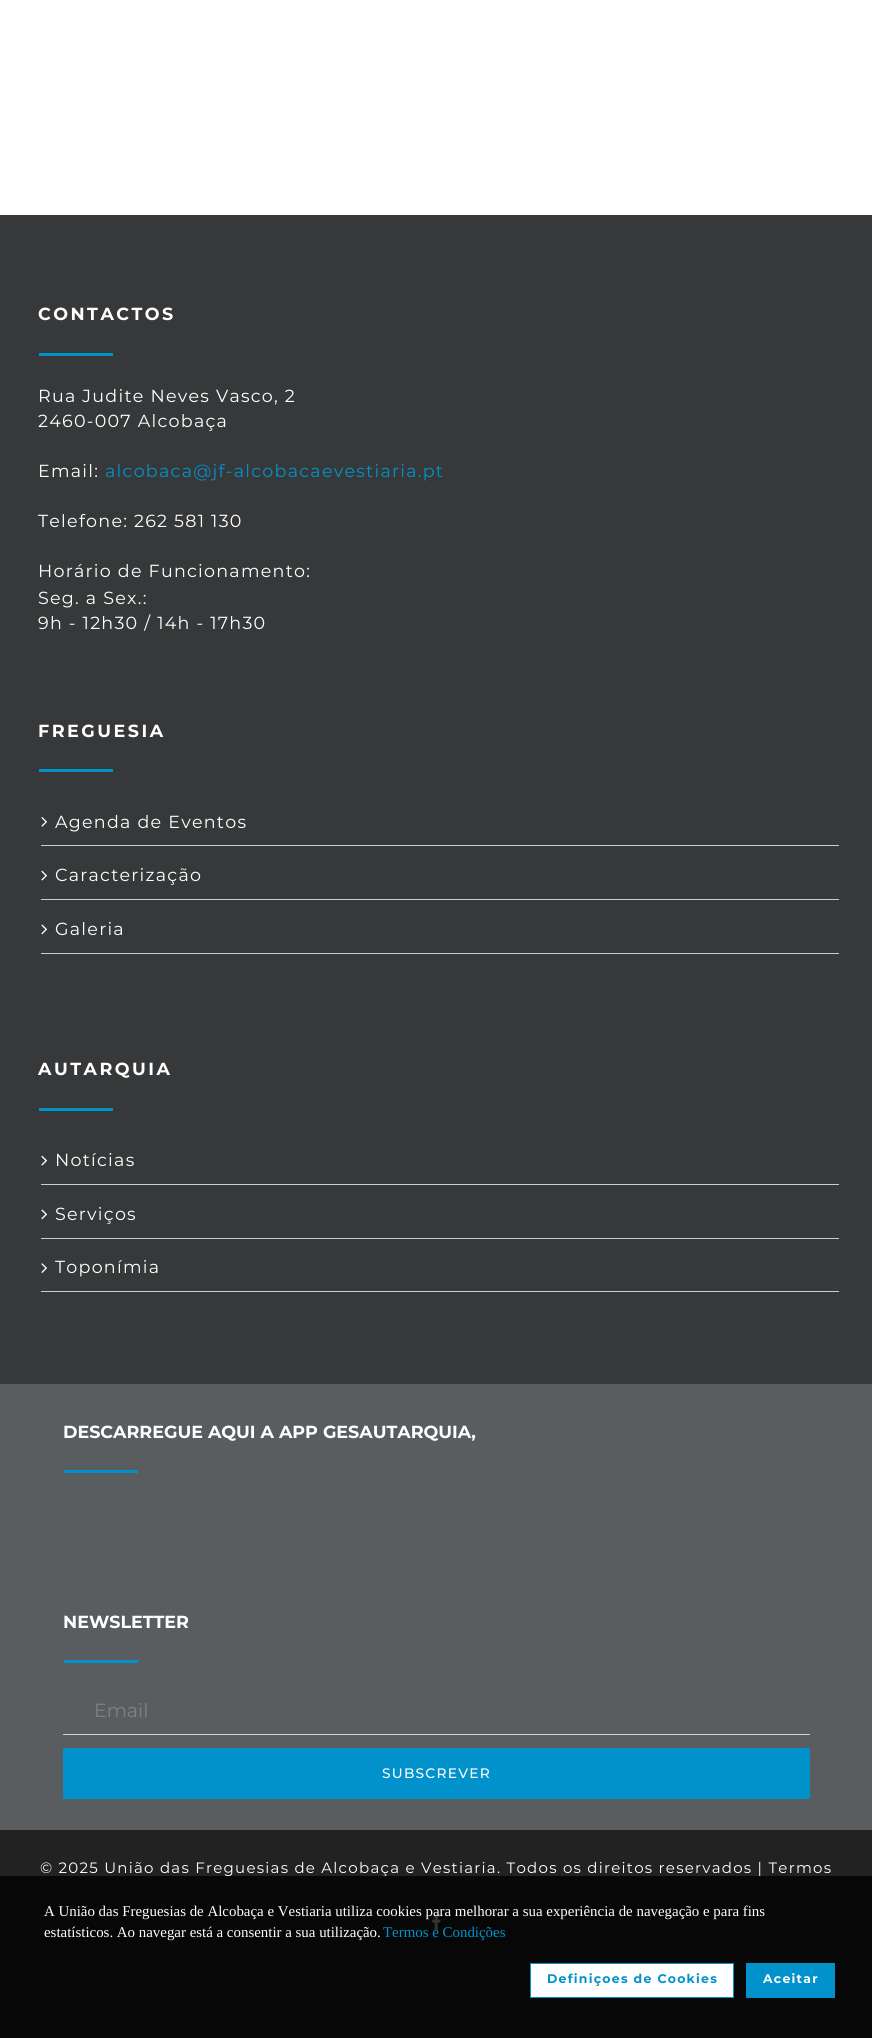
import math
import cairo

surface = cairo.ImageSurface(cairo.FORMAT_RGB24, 872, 2038)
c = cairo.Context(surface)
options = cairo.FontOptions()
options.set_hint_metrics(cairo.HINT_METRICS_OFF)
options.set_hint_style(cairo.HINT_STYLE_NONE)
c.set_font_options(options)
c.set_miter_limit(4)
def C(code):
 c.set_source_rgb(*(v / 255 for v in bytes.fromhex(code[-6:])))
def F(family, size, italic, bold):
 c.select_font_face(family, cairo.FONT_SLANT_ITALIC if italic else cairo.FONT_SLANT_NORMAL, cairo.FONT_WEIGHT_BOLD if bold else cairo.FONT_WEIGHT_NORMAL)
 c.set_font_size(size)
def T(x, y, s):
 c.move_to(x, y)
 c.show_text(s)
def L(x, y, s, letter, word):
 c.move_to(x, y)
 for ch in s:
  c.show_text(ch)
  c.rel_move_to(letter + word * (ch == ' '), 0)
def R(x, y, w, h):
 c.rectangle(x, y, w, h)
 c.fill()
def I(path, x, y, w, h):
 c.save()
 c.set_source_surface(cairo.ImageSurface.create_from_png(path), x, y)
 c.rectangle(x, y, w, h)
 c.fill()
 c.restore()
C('5a5d5f')
c.paint()
C('ffffff')
R(0,0,872,215)
C('363839')
R(0,215,872,1169)
F('Montserrat',17.5,0,1)
C('ffffff')
L(38,320,'CONTACTOS',2.5,0)
C('0292cb')
R(39,353,74,3)
F('Montserrat',17.5,0,0)
C('ffffff')
L(38,402,'Rua Judite Neves Vasco, 2',1.25,0)
L(38,427,'2460-007 Alcobaça',1.25,0)
L(38,477,'Email:',1.25,0)
C('0292cb')
L(105,477,'alcobaca@jf-alcobacaevestiaria.pt',1.25,0)
C('ffffff')
L(38,527,'Telefone: 262 581 130',1.25,0)
L(38,577,'Horário de Funcionamento:',1.25,0)
L(38,604,'Seg. a Sex.:',1.25,0)
L(38,629,'9h - 12h30 / 14h - 17h30',1.25,0)
F('Montserrat',17.5,0,1)
L(38,737,'FREGUESIA',2.5,0)
C('0292cb')
R(39,769,74,3)
C('cccccc')
R(41,845,798,1)
I('1.png',41,817,6,10)
F('Montserrat',17.5,0,0)
C('ffffff')
L(55,828,'Agenda de Eventos',1.25,0)
C('cccccc')
R(41,899,798,1)
I('2.png',41,870,6,11)
C('ffffff')
L(55,881,'Caracterização',1.25,0)
C('cccccc')
R(41,953,798,1)
I('3.png',41,924,6,11)
C('ffffff')
L(55,935,'Galeria',1.25,0)
F('Montserrat',17.5,0,1)
L(38,1075,'AUTARQUIA',2.5,0)
C('0292cb')
R(39,1108,74,3)
C('cccccc')
R(41,1184,798,1)
I('2.png',41,1155,6,11)
F('Montserrat',17.5,0,0)
C('ffffff')
L(55,1166,'Notícias',1.25,0)
C('cccccc')
R(41,1238,798,1)
I('3.png',41,1209,6,11)
C('ffffff')
L(55,1220,'Serviços',1.25,0)
C('cccccc')
R(41,1291,798,1)
I('4.png',41,1263,6,10)
C('ffffff')
L(55,1273,'Toponímia',1.25,0)
F('Montserrat',17.5,0,1)
T(63,1438,'DESCARREGUE AQUI A APP GESAUTARQUIA,')
C('0292cb')
R(64,1470,74,3)
C('ffffff')
T(63,1628,'NEWSLETTER')
C('0292cb')
R(64,1660,74,3)
C('d0d0d0')
R(63,1734,747,1)
F('Montserrat',19,0,0)
C('808080')
T(94,1717,'Email')
C('0292cb')
R(63,1748,747,51)
F('Montserrat Medium',13.75,0,0)
C('ffffff')
L(382,1778,'SUBSCREVER',1.25,0)
C('222222')
R(0,1830,872,208)
F('Montserrat',15,0,0)
C('ffffff')
L(40,1873,'© 2025 União das Freguesias de Alcobaça e Vestiaria. Todos os direitos reservados | Termos',1.25,0)
I('5.png',432,1913,9,17)
c.set_source_rgba(0,0,0,0.8)
R(0,1876,872,162)
F('Liberation Serif',14.9,0,0)
C('ffffff')
T(44,1916,'A União das Freguesias de Alcobaça e Vestiaria utiliza cookies para melhorar a sua experiência de navegação e para fins')
T(44,1937,'estatísticos. Ao navegar está a consentir a sua utilização.')
C('0292cb')
T(383,1937,'Termos e Condições')
C('ffffff')
c.rectangle(530.5,1963.5,203,34)
c.fill_preserve()
C('0292cb')
c.set_line_width(1)
c.stroke()
F('Montserrat',12.5,0,1)
L(547,1983,'Definiçoes de Cookies',1.25,0)
R(746,1963,89,35)
C('ffffff')
L(763,1983,'Aceitar',1.25,0)
surface.write_to_png('o.png')
